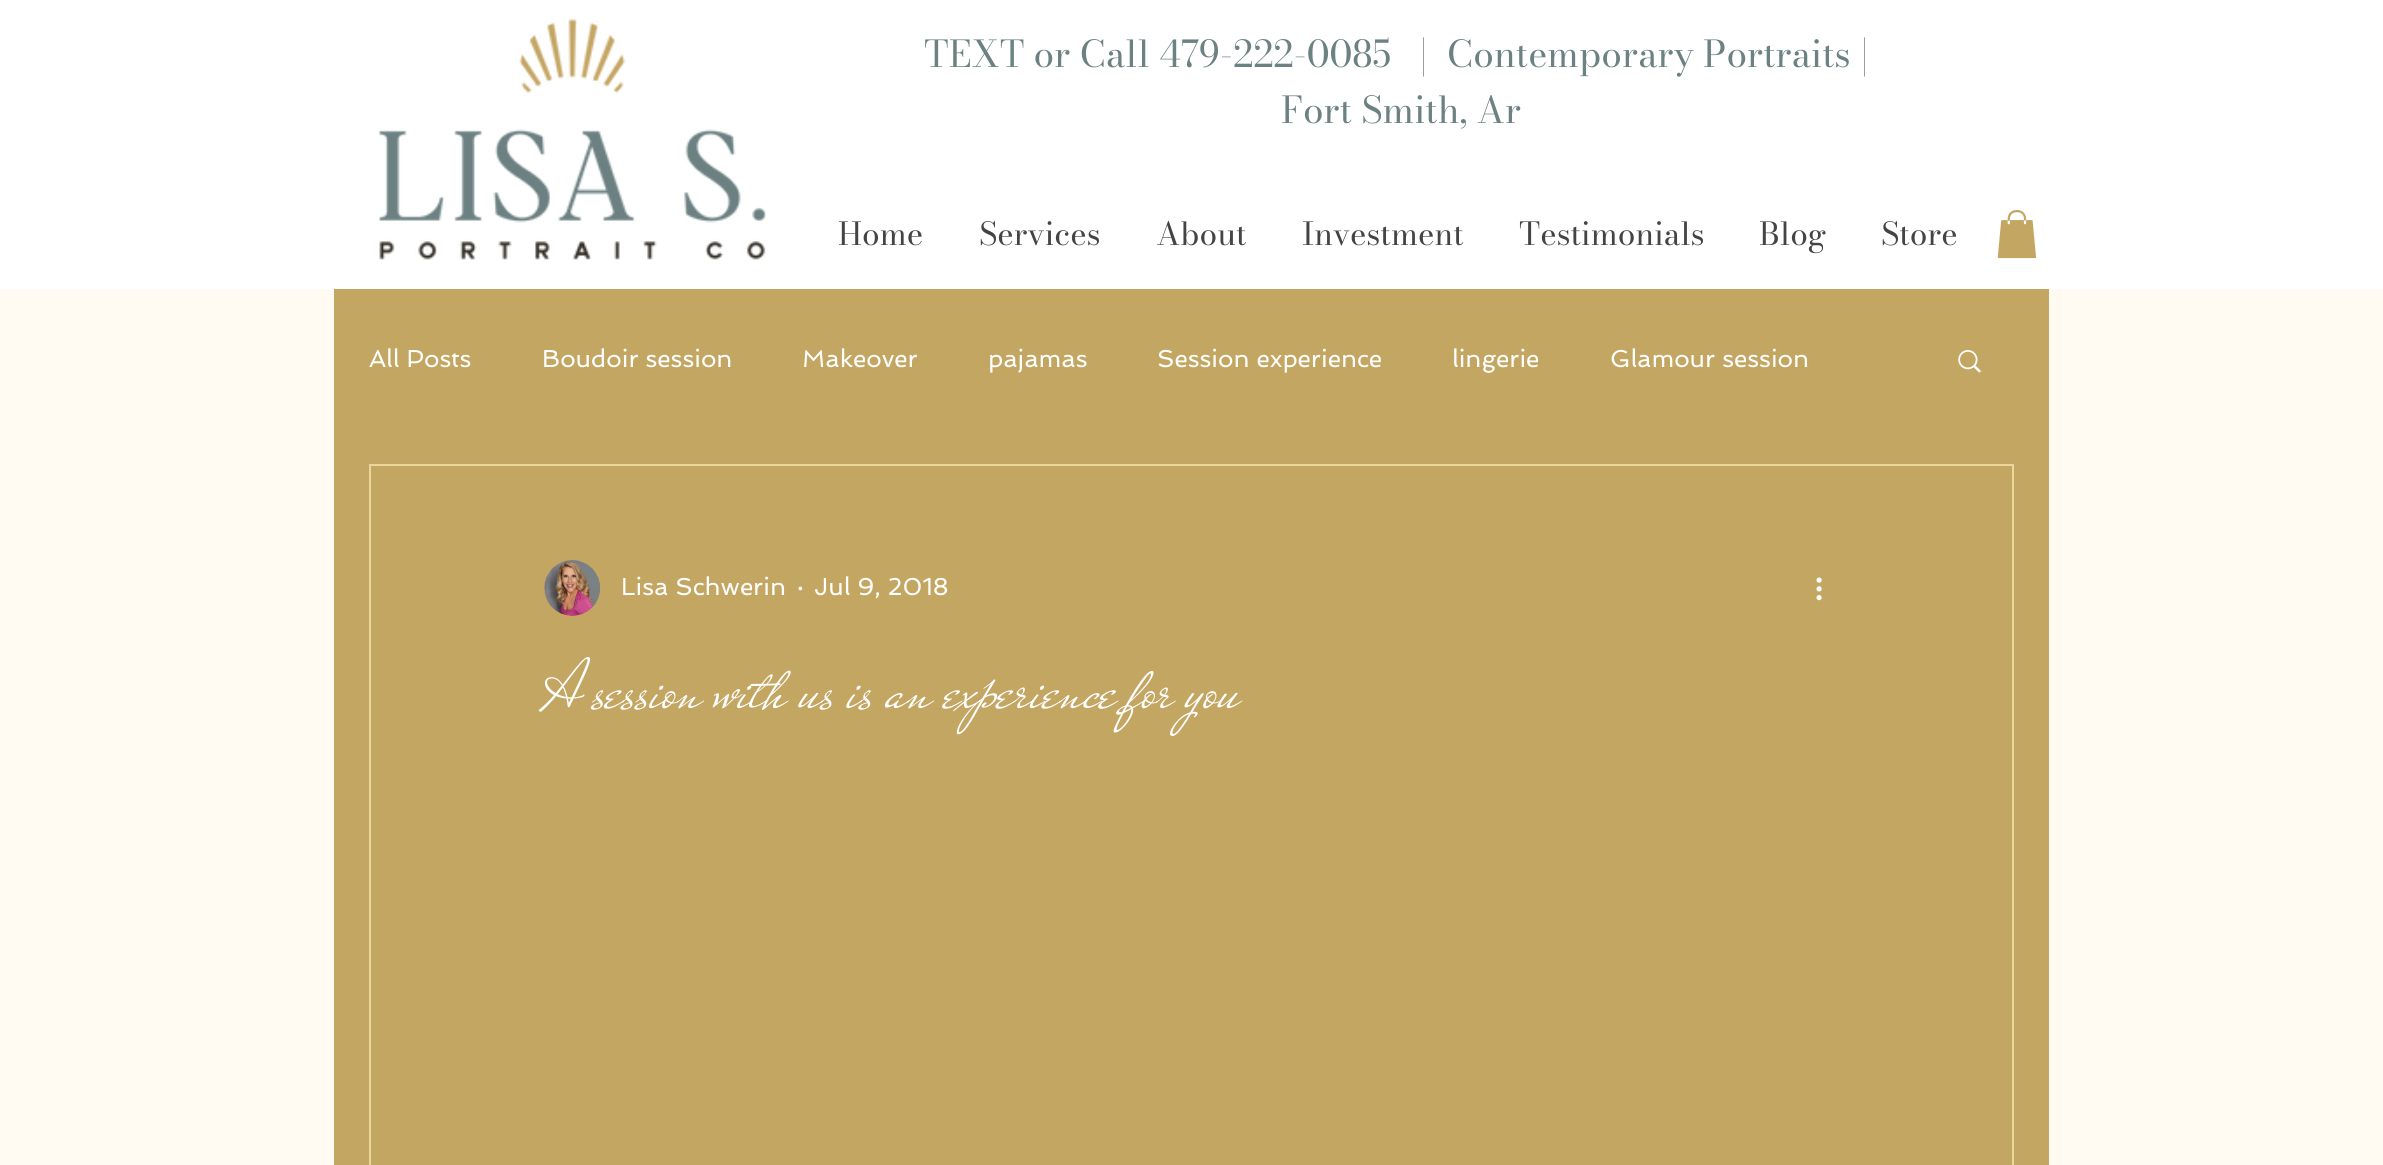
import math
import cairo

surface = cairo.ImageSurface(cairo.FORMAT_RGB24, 2383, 1165)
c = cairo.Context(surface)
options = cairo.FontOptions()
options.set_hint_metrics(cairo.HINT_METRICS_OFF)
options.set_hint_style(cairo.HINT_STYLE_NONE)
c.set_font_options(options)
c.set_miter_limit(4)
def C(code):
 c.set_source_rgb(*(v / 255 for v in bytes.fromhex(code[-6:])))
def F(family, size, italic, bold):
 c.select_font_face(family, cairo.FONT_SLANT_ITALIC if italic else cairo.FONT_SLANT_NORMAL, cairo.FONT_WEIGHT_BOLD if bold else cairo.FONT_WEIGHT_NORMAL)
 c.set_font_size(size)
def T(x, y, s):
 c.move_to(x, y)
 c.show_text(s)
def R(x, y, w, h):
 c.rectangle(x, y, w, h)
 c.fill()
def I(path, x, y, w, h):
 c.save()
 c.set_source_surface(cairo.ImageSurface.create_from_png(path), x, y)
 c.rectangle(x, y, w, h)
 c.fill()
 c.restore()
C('ffffff')
c.paint()
I('1.png',378,18,388,242)
F('Bodoni Moda',36.75,0,0)
C('6c8182')
T(924,67,'TEXT or Call 479-222-0085')
F('Bodoni Moda',38,0,0)
C('7b7b7c')
T(1419,67,'|')
F('Bodoni Moda',36.75,0,0)
C('6c8182')
T(1447,67,'Contemporary Portraits')
F('Bodoni Moda',38,0,0)
C('7b7b7c')
T(1860,67,'|')
F('Bodoni Moda',36.75,0,0)
C('6c8182')
T(1281,123,'Fort Smith, Ar')
F('Bodoni Moda',31.5,0,0)
C('444444')
T(838,245,'Home')
T(979,245,'Services')
T(1156,245,'About')
T(1302,245,'Investment')
T(1519,245,'Testimonials')
T(1759,245,'Blog')
T(1881,245,'Store')
I('2.png',1997,210,39,49)
C('fffbf3')
R(0,289,2383,876)
C('c4a663')
R(334,289,1715,876)
F('Spinnaker',24.5,0,0)
C('ffffff')
T(369,367,'All Posts')
T(542,367,'Boudoir session')
T(802,367,'Makeover')
T(988,367,'pajamas')
T(1157,367,'Session experience')
T(1452,367,'lingerie')
T(1610,367,'Glamour session')
I('3.png',1958,350,23,23)
c.rectangle(370,465,1643,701)
C('ecd69e')
c.stroke()
I('4.png',544,560,56,56)
C('ffffff')
T(621,595,'Lisa Schwerin')
T(797,595,'·')
T(814,595,'Jul 9, 2018')
I('5.png',1816,577,6,24)
F('Mr De Haviland',70,0,0)
T(544,707,'A session with us is an experience for you')
surface.write_to_png('o.png')
